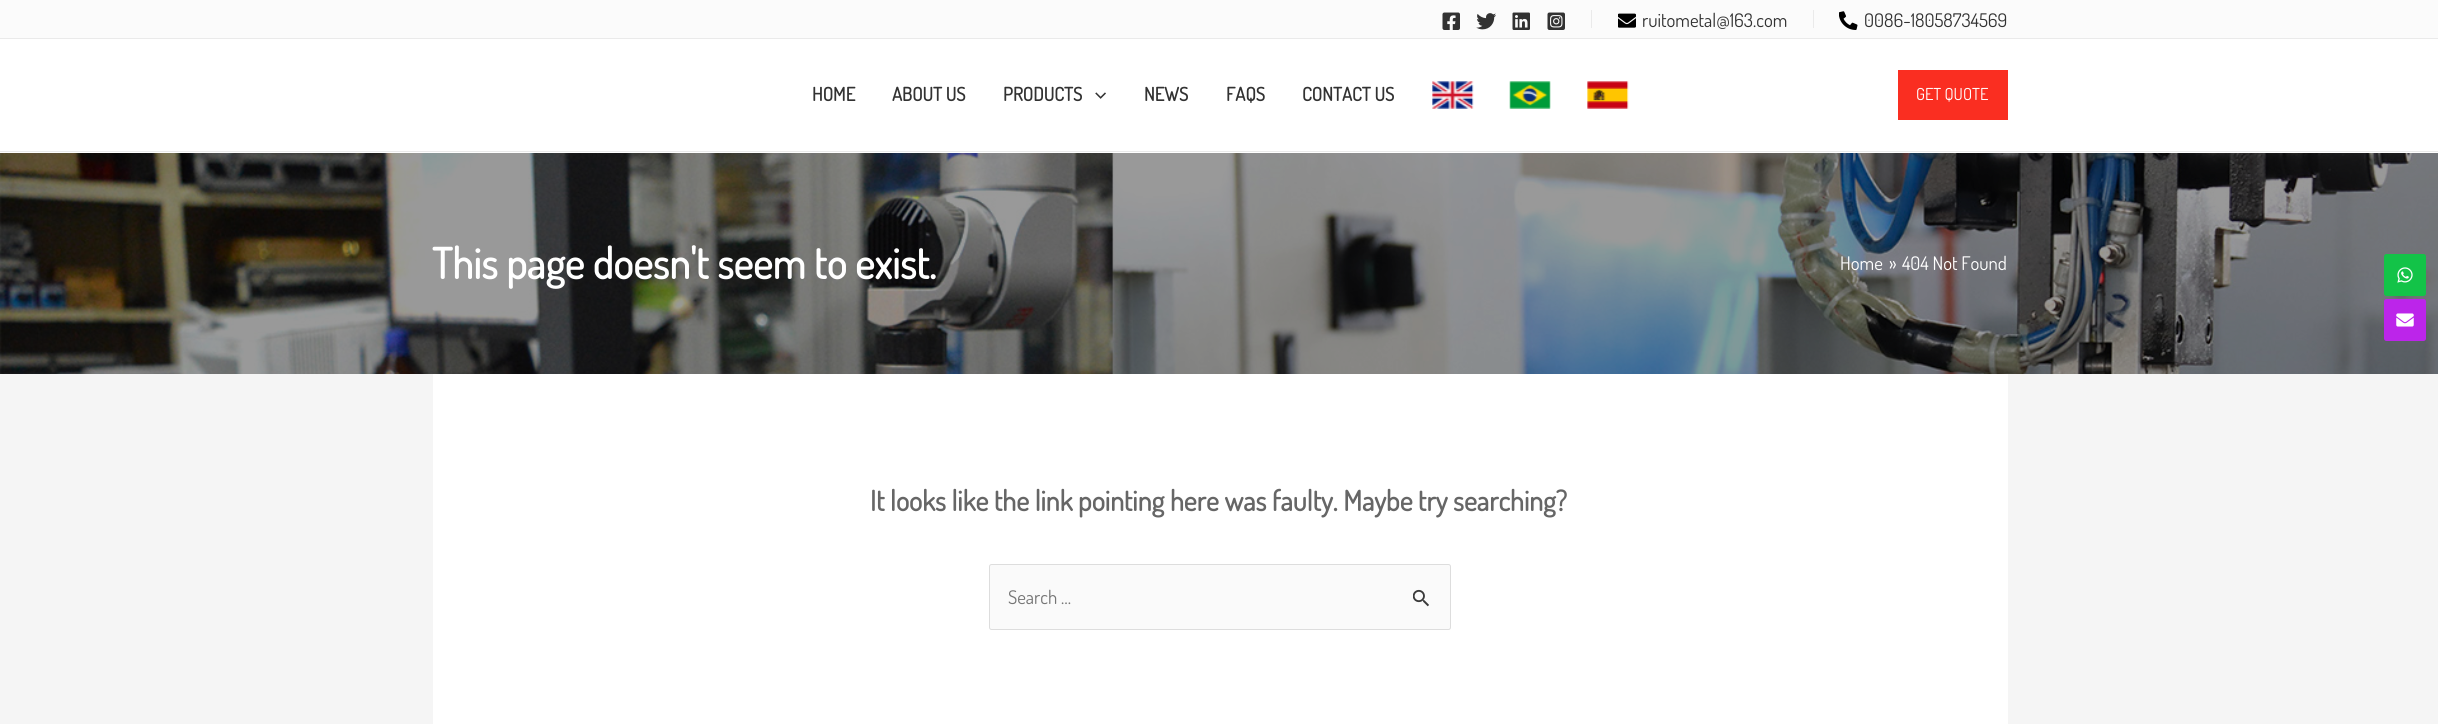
import math
import cairo

surface = cairo.ImageSurface(cairo.FORMAT_RGB24, 2438, 724)
c = cairo.Context(surface)
options = cairo.FontOptions()
options.set_hint_metrics(cairo.HINT_METRICS_OFF)
options.set_hint_style(cairo.HINT_STYLE_NONE)
c.set_font_options(options)
c.set_miter_limit(4)
def C(code):
 c.set_source_rgb(*(v / 255 for v in bytes.fromhex(code[-6:])))
def F(family, size, italic, bold):
 c.select_font_face(family, cairo.FONT_SLANT_ITALIC if italic else cairo.FONT_SLANT_NORMAL, cairo.FONT_WEIGHT_BOLD if bold else cairo.FONT_WEIGHT_NORMAL)
 c.set_font_size(size)
def T(x, y, s):
 c.move_to(x, y)
 c.show_text(s)
def R(x, y, w, h):
 c.rectangle(x, y, w, h)
 c.fill()
def Q(x, y, w, h, r):
 c.new_sub_path()
 for i, (u, v) in enumerate([(x + w - r, y + h - r), (x + r, y + h - r), (x + r, y + r), (x + w - r, y + r)]):
  c.arc(u, v, r, i * math.pi / 2, (i + 1) * math.pi / 2)
 c.close_path()
def I(path, x, y, w, h):
 c.save()
 c.set_source_surface(cairo.ImageSurface.create_from_png(path), x, y)
 c.rectangle(x, y, w, h)
 c.fill()
 c.restore()
C('f5f5f5')
c.paint()
C('fbfbfb')
R(0,0,2438,38)
C('eaeaea')
R(0,38,2438,1)
I('1.png',1442,12,18,18)
I('2.png',1476,13,20,17)
I('3.png',1512,12,18,18)
I('4.png',1547,12,18,18)
R(1591,10,1,18)
I('5.png',1618,13,18,15)
F('Dosis',18.75,0,0)
C('323232')
T(1642,27,'ruitometal@163.com')
C('eaeaea')
R(1813,10,1,18)
I('6.png',1839,11,19,19)
C('323232')
T(1864,27,'0086-18058734569')
C('ffffff')
R(0,39,2438,114)
C('eaeaea')
R(0,151,2438,1)
F('Dosis',18.75,0,1)
C('323232')
T(812,101,'HOME')
T(892,101,'ABOUT US')
T(1003,101,'PRODUCTS')
I('7.png',1095,92,11,7)
T(1144,101,'NEWS')
T(1226,101,'FAQS')
T(1302,101,'CONTACT US')
I('8.png',1432,81,42,28)
I('9.png',1509,81,42,28)
I('10.png',1587,81,42,28)
C('fa2e21')
R(1898,70,110,50)
F('Dosis',16.5,0,0)
C('ffffff')
T(1916,100,'GET QUOTE')
I('11.png',0,153,2438,221)
F('Dosis',42.5,0,1)
T(432,279,'This page doesn\'t seem to exist.')
F('Dosis',18.75,0,0)
T(1840,270,'Home')
T(1889,270,'»')
T(1902,270,'404 Not Found')
R(433,374,1575,350)
F('Dosis',28.1,0,1)
C('666666')
T(870,511,'It looks like the link pointing here was faulty. Maybe try searching?')
C('fafafa')
Q(989.5,564.5,461,65,2)
c.fill_preserve()
C('dddddd')
c.set_line_width(1)
c.stroke()
F('Dosis',18.75,0,0)
C('757575')
T(1008,604,'Search …')
I('12.png',1413,589,16,18)
C('13c348')
Q(2384,254,42,42,2.5)
c.fill()
I('13.png',2397,267,16,16)
C('bc25ea')
Q(2384,299,42,42,2.5)
c.fill()
I('14.png',2396,313,18,14)
surface.write_to_png('o.png')
